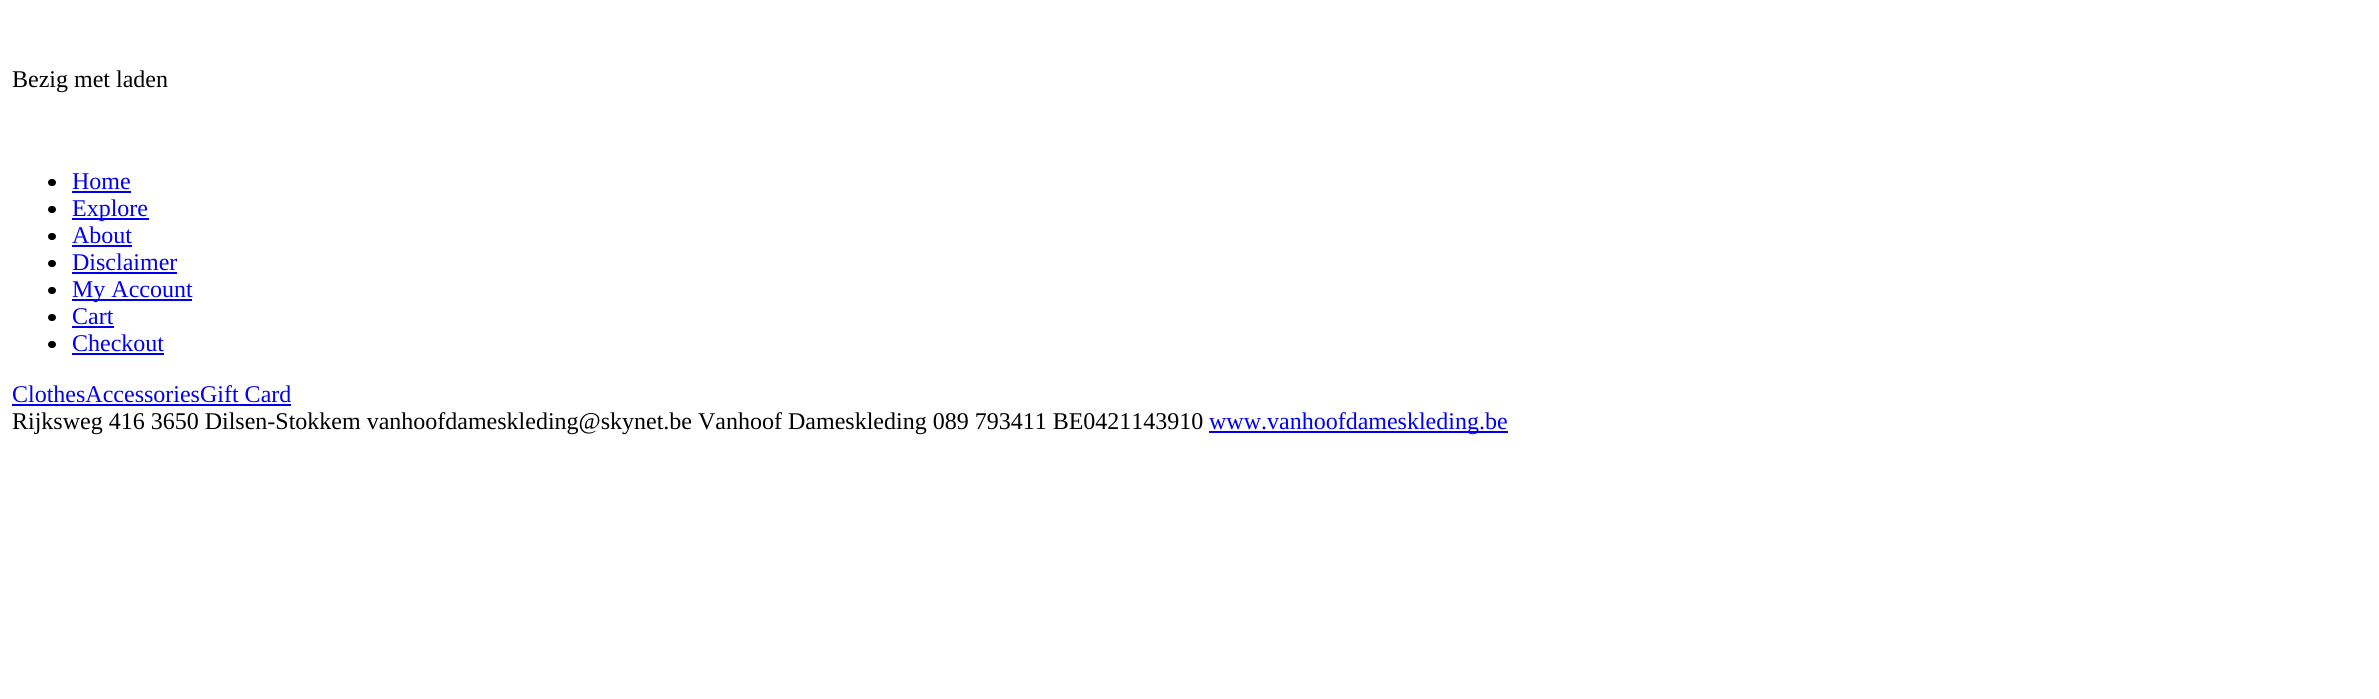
import math
import cairo

surface = cairo.ImageSurface(cairo.FORMAT_RGB24, 2379, 699)
c = cairo.Context(surface)
options = cairo.FontOptions()
options.set_hint_metrics(cairo.HINT_METRICS_OFF)
options.set_hint_style(cairo.HINT_STYLE_NONE)
c.set_font_options(options)
c.set_miter_limit(4)
def C(code):
 c.set_source_rgb(*(v / 255 for v in bytes.fromhex(code[-6:])))
def F(family, size, italic, bold):
 c.select_font_face(family, cairo.FONT_SLANT_ITALIC if italic else cairo.FONT_SLANT_NORMAL, cairo.FONT_WEIGHT_BOLD if bold else cairo.FONT_WEIGHT_NORMAL)
 c.set_font_size(size)
def T(x, y, s):
 c.move_to(x, y)
 c.show_text(s)
def R(x, y, w, h):
 c.rectangle(x, y, w, h)
 c.fill()
def Q(x, y, w, h, r):
 c.new_sub_path()
 for i, (u, v) in enumerate([(x + w - r, y + h - r), (x + r, y + h - r), (x + r, y + r), (x + w - r, y + r)]):
  c.arc(u, v, r, i * math.pi / 2, (i + 1) * math.pi / 2)
 c.close_path()
C('ffffff')
c.paint()
F('Liberation Serif',24,0,0)
C('000000')
T(12,87,'Bezig met laden')
Q(48,179,8,7,3.5)
c.fill()
C('0000ee')
T(72,189,'Home')
R(72,191,59,2)
C('000000')
Q(48,206,8,7,3.5)
c.fill()
C('0000ee')
R(72,218,77,2)
T(72,216,'Explore')
C('000000')
Q(48,233,8,7,3.5)
c.fill()
C('0000ee')
T(72,243,'About')
R(72,245,60,2)
C('000000')
Q(48,260,8,7,3.5)
c.fill()
C('0000ee')
T(72,270,'Disclaimer')
R(72,272,105,2)
C('000000')
Q(48,287,8,7,3.5)
c.fill()
C('0000ee')
R(72,299,120,2)
T(72,297,'My Account')
C('000000')
Q(48,314,8,7,3.5)
c.fill()
C('0000ee')
T(72,324,'Cart')
R(72,326,42,2)
C('000000')
Q(48,341,8,7,3.5)
c.fill()
C('0000ee')
T(72,351,'Checkout')
R(72,353,92,2)
T(12,402,'ClothesAccessoriesGift Card')
R(12,404,279,2)
C('000000')
T(12,429,'Rijksweg 416 3650 Dilsen-Stokkem vanhoofdameskleding@skynet.be Vanhoof Dameskleding 089 793411 BE0421143910')
C('0000ee')
R(1209,431,299,2)
T(1209,429,'www.vanhoofdameskleding.be')
surface.write_to_png('o.png')
